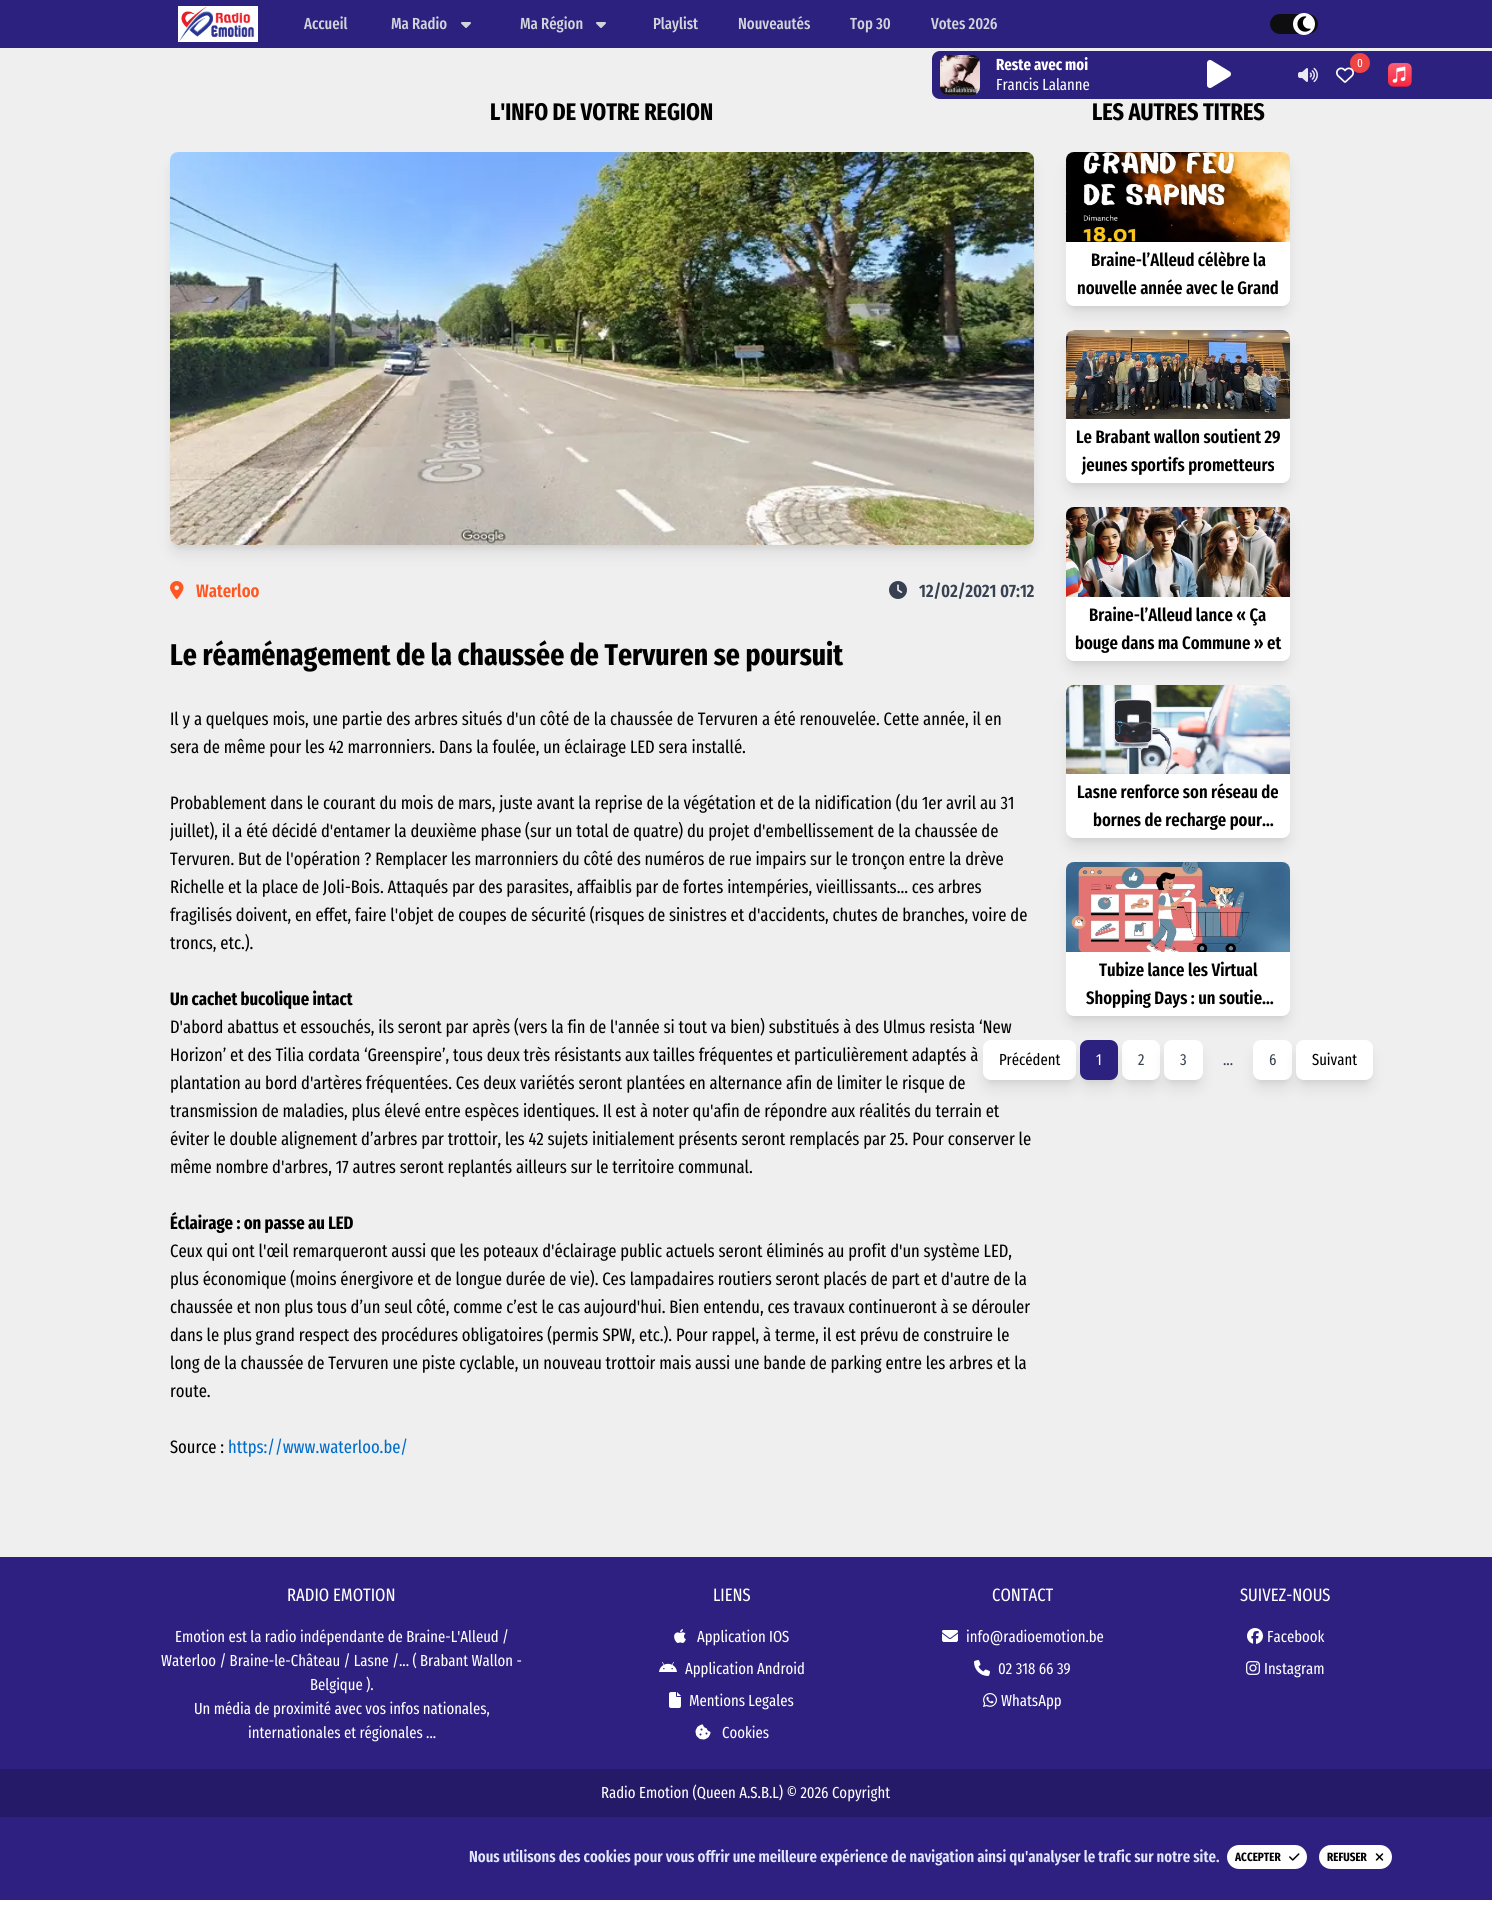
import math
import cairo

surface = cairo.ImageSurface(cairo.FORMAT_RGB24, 1492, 1909)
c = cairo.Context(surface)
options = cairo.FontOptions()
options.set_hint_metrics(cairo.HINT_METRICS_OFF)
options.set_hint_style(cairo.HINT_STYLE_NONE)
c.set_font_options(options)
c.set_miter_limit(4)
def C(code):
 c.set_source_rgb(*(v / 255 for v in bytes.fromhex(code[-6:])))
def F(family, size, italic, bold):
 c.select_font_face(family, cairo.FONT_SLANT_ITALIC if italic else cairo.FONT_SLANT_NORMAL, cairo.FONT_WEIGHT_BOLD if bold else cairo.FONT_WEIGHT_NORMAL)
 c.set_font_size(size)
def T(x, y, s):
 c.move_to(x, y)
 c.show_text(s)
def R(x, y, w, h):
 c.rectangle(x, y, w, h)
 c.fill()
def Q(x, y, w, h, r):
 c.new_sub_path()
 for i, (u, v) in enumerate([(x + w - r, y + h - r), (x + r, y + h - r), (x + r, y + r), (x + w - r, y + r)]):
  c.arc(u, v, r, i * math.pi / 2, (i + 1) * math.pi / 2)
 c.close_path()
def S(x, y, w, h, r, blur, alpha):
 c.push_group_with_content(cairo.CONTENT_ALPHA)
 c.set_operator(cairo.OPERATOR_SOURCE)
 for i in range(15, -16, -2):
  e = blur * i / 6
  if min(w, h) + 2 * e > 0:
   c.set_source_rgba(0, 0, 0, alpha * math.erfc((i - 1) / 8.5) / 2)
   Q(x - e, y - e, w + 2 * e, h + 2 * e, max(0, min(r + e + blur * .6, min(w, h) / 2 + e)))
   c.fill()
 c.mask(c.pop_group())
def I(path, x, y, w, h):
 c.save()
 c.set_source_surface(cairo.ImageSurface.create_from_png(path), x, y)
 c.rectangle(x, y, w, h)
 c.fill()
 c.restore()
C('ffffff')
c.paint()
C('2d2180')
R(0,0,1492,48)
C('ffffff')
R(178,6,80,36)
I('1.png',179,6,76,36)
F('Fira Sans Extra Condensed Medium',16,0,0)
C('d1d5db')
T(304,29,'Accueil')
T(391,29,'Ma Radio')
I('2.png',461,22,10,6)
T(520,29,'Ma Région')
I('2.png',596,22,10,6)
T(653,29,'Playlist')
T(738,29,'Nouveautés')
T(850,29,'Top 30')
T(931,29,'Votes 2026')
C('0e0e10')
Q(1270,14,48,20,10)
c.fill()
C('ffffff')
c.arc(1304,24,11,0,2 * math.pi)
c.fill()
I('3.png',1297,16,14,16)
C('eeefee')
R(0,48,1492,1509)
C('2d2180')
c.new_path()
c.move_to(940,51)
c.line_to(1492,51)
c.line_to(1492,99)
c.line_to(940,99)
c.curve_to(935.5,99,932,95.5,932,91)
c.line_to(932,59)
c.curve_to(932,54.5,935.5,51,940,51)
c.close_path()
c.fill()
I('4.png',940,55,40,40)
F('Fira Sans Extra Condensed',16,0,1)
C('ffffff')
T(996,70,'Reste avec moi')
F('Fira Sans Extra Condensed',16,0,0)
T(996,90,'Francis Lalanne')
I('5.png',1207,60,24,28)
I('6.png',1298,67,20,16)
C('ef4444')
c.arc(1360,63,10,0,2 * math.pi)
c.fill()
F('Fira Sans Extra Condensed',12,0,0)
C('ffffff')
T(1357,67,'0')
I('7.png',1336,67,18,16)
I('8.png',1388,63,24,24)
F('Fira Sans Extra Condensed',24,0,1)
C('000000')
T(490,120,'L\'INFO DE VOTRE REGION')
C('000000')
S(174,160,856,385,4,3,.1)
S(173,165,858,387,5,7.5,.1)
C('ffffff')
Q(170,152,864,393,8)
c.fill()
I('9.png',170,152,864,393)
I('10.png',170,581,14,18)
F('Fira Sans Extra Condensed SemiBold',18,0,0)
C('ff5722')
T(196,597,'Waterloo')
I('11.png',889,581,18,18)
C('374151')
T(919,597,'12/02/2021 07:12')
F('Fira Sans Extra Condensed',30,0,1)
C('000000')
T(170,665,'Le réaménagement de la chaussée de Tervuren se poursuit')
F('Fira Sans Extra Condensed',18,0,0)
T(170,725,'Il y a quelques mois, une partie des arbres situés d\'un côté de la chaussée de Tervuren a été renouvelée. Cette année, il en')
T(170,753,'sera de même pour les 42 marronniers. Dans la foulée, un éclairage LED sera installé.')
T(170,809,'Probablement dans le courant du mois de mars, juste avant la reprise de la végétation et de la nidification (du 1er avril au 31')
T(170,837,'juillet), il a été décidé d\'entamer la deuxième phase (sur un total de quatre) du projet d\'embellissement de la chaussée de')
T(170,865,'Tervuren. But de l\'opération ? Remplacer les marronniers du côté des numéros de rue impairs sur le tronçon entre la drève')
T(170,893,'Richelle et la place de Joli-Bois. Attaqués par des parasites, affaiblis par de fortes intempéries, vieillissants… ces arbres')
T(170,921,'fragilisés doivent, en effet, faire l\'objet de coupes de sécurité (risques de sinistres et d\'accidents, chutes de branches, voire de')
T(170,949,'troncs, etc.).')
F('Fira Sans Extra Condensed',18,0,1)
T(170,1005,'Un cachet bucolique intact')
F('Fira Sans Extra Condensed',18,0,0)
T(170,1033,'D\'abord abattus et essouchés, ils seront par après (vers la fin de l\'année si tout va bien) substitués à des Ulmus resista ‘New')
T(170,1061,'Horizon’ et des Tilia cordata ‘Greenspire’, tous deux très résistants aux tailles fréquentes et particulièrement adaptés à')
T(170,1089,'plantation au bord d\'artères fréquentées. Ces deux variétés seront plantées en alternance afin de limiter le risque de')
T(170,1117,'transmission de maladies, plus élevé entre espèces identiques. Il est à noter qu\'afin de répondre aux réalités du terrain et')
T(170,1145,'éviter le double alignement d’arbres par trottoir, les 42 sujets initialement présents seront remplacés par 25. Pour conserver le')
T(170,1173,'même nombre d\'arbres, 17 autres seront replantés ailleurs sur le territoire communal.')
F('Fira Sans Extra Condensed',18,0,1)
T(170,1229,'Éclairage : on passe au LED')
F('Fira Sans Extra Condensed',18,0,0)
T(170,1257,'Ceux qui ont l\'œil remarqueront aussi que les poteaux d\'éclairage public actuels seront éliminés au profit d\'un système LED,')
T(170,1285,'plus économique (moins énergivore et de longue durée de vie). Ces lampadaires routiers seront placés de part et d\'autre de la')
T(170,1313,'chaussée et non plus tous d’un seul côté, comme c’est le cas aujourd\'hui. Bien entendu, ces travaux continueront à se dérouler')
T(170,1341,'dans le plus grand respect des procédures obligatoires (permis SPW, etc.). Pour rappel, à terme, il est prévu de construire le')
T(170,1369,'long de la chaussée de Tervuren une piste cyclable, un nouveau trottoir mais aussi une bande de parking entre les arbres et la')
T(170,1397,'route.')
T(170,1453,'Source :')
C('006dcc')
T(228,1453,'https://www.waterloo.be/')
F('Fira Sans Extra Condensed',24,0,1)
C('000000')
T(1092,120,'LES AUTRES TITRES')
C('000000')
S(1070,160,216,146,4,3,.1)
S(1069,165,218,148,5,7.5,.1)
C('ffffff')
Q(1066,152,224,154,8)
c.fill()
I('12.png',1066,152,224,90)
F('Fira Sans Extra Condensed SemiBold',18,0,0)
C('000000')
T(1091,266,'Braine-l’Alleud célèbre la')
T(1077,294,'nouvelle année avec le Grand')
C('000000')
S(1070,338,216,145,4,3,.1)
S(1069,343,218,147,5,7.5,.1)
C('ffffff')
Q(1066,330,224,153,8)
c.fill()
I('13.png',1066,330,224,89)
C('000000')
T(1076,443,'Le Brabant wallon soutient 29')
T(1082,471,'jeunes sportifs prometteurs')
C('000000')
S(1070,515,216,146,4,3,.1)
S(1069,520,218,148,5,7.5,.1)
C('ffffff')
Q(1066,507,224,154,8)
c.fill()
I('14.png',1066,507,224,90)
C('000000')
T(1089,621,'Braine-l’Alleud lance « Ça')
T(1075,649,'bouge dans ma Commune » et')
C('000000')
S(1070,693,216,145,4,3,.1)
S(1069,698,218,147,5,7.5,.1)
C('ffffff')
Q(1066,685,224,153,8)
c.fill()
I('15.png',1066,685,224,89)
C('000000')
T(1077,798,'Lasne renforce son réseau de')
T(1093,826,'bornes de recharge pour…')
C('000000')
S(1070,870,216,146,4,3,.1)
S(1069,875,218,148,5,7.5,.1)
C('ffffff')
Q(1066,862,224,154,8)
c.fill()
I('16.png',1066,862,224,90)
C('000000')
T(1099,976,'Tubize lance les Virtual')
T(1086,1004,'Shopping Days : un soutie…')
C('000000')
S(987,1048,85,32,4,3,.1)
S(986,1053,87,34,5,7.5,.1)
C('ffffff')
Q(983,1040,93,40,8)
c.fill()
F('Fira Sans Extra Condensed',16,0,0)
C('000000')
T(999,1065,'Précédent')
C('000000')
S(1126,1048,30,32,4,3,.1)
S(1125,1053,32,34,5,7.5,.1)
C('ffffff')
Q(1122,1040,38,40,8)
c.fill()
C('000000')
S(1084,1048,30,32,4,3,.1)
S(1083,1053,32,34,5,7.5,.1)
C('2d2180')
Q(1080,1040,38,40,8)
c.fill()
C('ffffff')
T(1096,1065,'1')
C('374151')
T(1138,1065,'2')
C('000000')
S(1168,1048,31,32,4,3,.1)
S(1167,1053,33,34,5,7.5,.1)
C('ffffff')
Q(1164,1040,39,40,8)
c.fill()
C('374151')
T(1180,1065,'3')
T(1223,1065,'...')
C('000000')
S(1257,1048,31,32,4,3,.1)
S(1256,1053,33,34,5,7.5,.1)
C('ffffff')
Q(1253,1040,39,40,8)
c.fill()
C('374151')
T(1269,1065,'6')
C('000000')
S(1300,1048,69,32,4,3,.1)
S(1299,1053,71,34,5,7.5,.1)
C('ffffff')
Q(1296,1040,77,40,8)
c.fill()
C('000000')
T(1312,1065,'Suivant')
C('2d2081')
R(0,1557,1492,343)
F('Fira Sans Extra Condensed',18,0,0)
C('ffffff')
T(287,1601,'RADIO EMOTION')
F('Fira Sans Extra Condensed',16,0,0)
T(175,1642,'Emotion est la radio indépendante de Braine-L\'Alleud /')
T(161,1666,'Waterloo / Braine-le-Château / Lasne /... ( Brabant Wallon -')
T(310,1690,'Belgique ).')
T(194,1714,'Un média de proximité avec vos infos nationales,')
T(248,1738,'internationales et régionales ...')
F('Fira Sans Extra Condensed',18,0,0)
T(713,1601,'LIENS')
I('17.png',674,1629,12,14)
F('Fira Sans Extra Condensed',16,0,0)
T(697,1642,'Application IOS')
I('18.png',659,1661,18,11)
T(685,1674,'Application Android')
I('19.png',669,1692,12,16)
T(689,1706,'Mentions Legales')
I('20.png',695,1724,16,16)
T(722,1738,'Cookies')
F('Fira Sans Extra Condensed',18,0,0)
T(992,1601,'CONTACT')
I('21.png',942,1630,16,12)
F('Fira Sans Extra Condensed',16,0,0)
T(966,1642,'info@radioemotion.be')
I('22.png',974,1660,16,16)
T(998,1674,'02 318 66 39')
I('23.png',983,1693,14,14)
T(1001,1706,'WhatsApp')
F('Fira Sans Extra Condensed',18,0,0)
T(1240,1601,'SUIVEZ-NOUS')
I('24.png',1247,1628,16,16)
F('Fira Sans Extra Condensed',16,0,0)
T(1267,1642,'Facebook')
I('25.png',1246,1661,14,14)
T(1264,1674,'Instagram')
C('251a67')
R(0,1769,1492,48)
C('ffffff')
T(601,1798,'Radio Emotion (Queen A.S.B.L) © 2026 Copyright')
F('Fira Sans Extra Condensed SemiBold',16,0,0)
C('e0e7ff')
T(469,1862,'Nous utilisons des cookies pour vous offrir une meilleure expérience de navigation ainsi qu\'analyser le trafic sur notre site.')
C('ffffff')
Q(1227,1845,80,24,12)
c.fill()
F('Fira Sans Extra Condensed',12,0,1)
C('000000')
T(1235,1861,'ACCEPTER')
I('26.png',1289,1853,11,8)
C('ffffff')
Q(1319,1845,73,24,12)
c.fill()
C('000000')
T(1327,1861,'REFUSER')
I('27.png',1375,1853,9,8)
surface.write_to_png('o.png')
